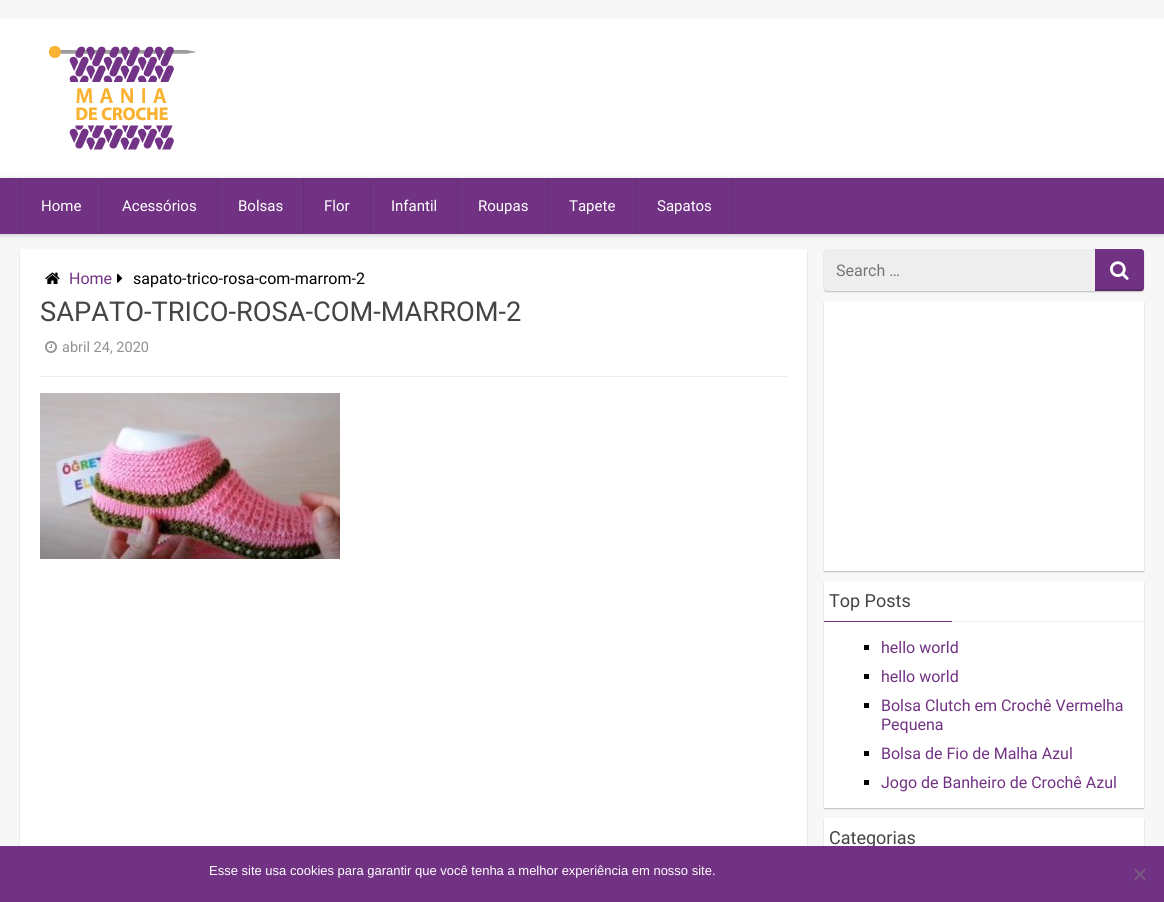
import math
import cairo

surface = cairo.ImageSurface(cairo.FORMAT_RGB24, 1164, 902)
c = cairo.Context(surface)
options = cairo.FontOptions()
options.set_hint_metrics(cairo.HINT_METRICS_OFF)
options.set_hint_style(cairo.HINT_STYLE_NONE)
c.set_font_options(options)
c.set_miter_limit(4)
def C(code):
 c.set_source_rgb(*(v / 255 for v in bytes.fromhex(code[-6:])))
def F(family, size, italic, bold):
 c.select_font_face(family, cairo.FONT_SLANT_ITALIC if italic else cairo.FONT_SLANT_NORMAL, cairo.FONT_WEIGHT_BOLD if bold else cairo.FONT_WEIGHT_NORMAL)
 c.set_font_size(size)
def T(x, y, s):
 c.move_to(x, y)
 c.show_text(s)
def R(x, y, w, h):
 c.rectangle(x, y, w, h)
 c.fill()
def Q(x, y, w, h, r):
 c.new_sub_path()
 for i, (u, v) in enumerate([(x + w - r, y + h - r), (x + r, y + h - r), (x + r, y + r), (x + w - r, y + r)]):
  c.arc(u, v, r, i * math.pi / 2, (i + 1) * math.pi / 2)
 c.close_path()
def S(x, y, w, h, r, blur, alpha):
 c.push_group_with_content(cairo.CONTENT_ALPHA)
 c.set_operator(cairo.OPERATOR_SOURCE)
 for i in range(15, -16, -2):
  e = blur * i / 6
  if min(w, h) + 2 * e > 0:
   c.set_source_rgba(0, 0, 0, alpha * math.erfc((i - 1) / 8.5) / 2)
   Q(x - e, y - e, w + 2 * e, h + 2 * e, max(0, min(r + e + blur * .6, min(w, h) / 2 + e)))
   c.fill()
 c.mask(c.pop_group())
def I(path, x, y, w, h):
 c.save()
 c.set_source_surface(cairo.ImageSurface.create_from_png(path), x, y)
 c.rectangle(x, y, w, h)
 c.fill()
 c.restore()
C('f7f7f7')
c.paint()
C('ffffff')
R(0,19,1164,159)
I('1.png',48,46,149,104)
C('000000')
S(0,179,1164,56,0,2.5,.2)
C('723284')
R(0,178,1164,56)
C('672d77')
R(101,178,1,56)
R(20,178,1,56)
F('Roboto',15,0,0)
C('ffffff')
T(41,211,'Home')
C('672d77')
R(217,178,1,56)
C('ffffff')
T(122,211,'Acessórios')
C('672d77')
R(303,178,1,56)
C('ffffff')
T(238,211,'Bolsas')
C('672d77')
R(370,178,1,56)
C('ffffff')
T(324,211,'Flor')
C('672d77')
R(457,178,1,56)
C('ffffff')
T(391,211,'Infantil')
C('672d77')
R(548,178,1,56)
C('ffffff')
T(478,211,'Roupas')
C('672d77')
R(636,178,1,56)
C('ffffff')
T(569,211,'Tapete')
C('672d77')
R(732,178,1,56)
C('ffffff')
T(657,211,'Sapatos')
C('c2c4c4')
S(20,250,787,630,0,.5,1)
C('ffffff')
R(20,249,787,597)
I('2.png',45,272,15,12)
F('Roboto',16,0,0)
C('723284')
T(69,284,'Home')
I('3.png',117,273,6,10)
C('000000')
T(133,284,'sapato-trico-rosa-com-marrom-2')
C('eeeeee')
R(40,376,747,1)
F('Roboto',27.25,0,0)
C('444444')
T(40,321,'SAPATO-TRICO-ROSA-COM-MARROM-2')
I('4.png',45,341,12,12)
F('Roboto',14.5,0,0)
C('919191')
T(62,352,'abril 24, 2020')
I('5.png',40,393,300,166)
C('c2c4c4')
S(824,250,320,42,3,.5,1)
C('eeeeee')
Q(824,249,320,42,3)
c.fill()
F('Roboto',16,0,0)
C('757575')
T(836,276,'Search …')
C('723284')
c.new_path()
c.move_to(1095,249)
c.line_to(1141,249)
c.curve_to(1142.5,249,1144,250.5,1144,252)
c.line_to(1144,288)
c.curve_to(1144,289.5,1142.5,291,1141,291)
c.line_to(1095,291)
c.close_path()
c.fill()
c.set_source_rgba(0,0,0,0.2)
c.new_path()
c.move_to(1095,291)
c.line_to(1141,291)
c.curve_to(1143,291,1144,290,1144,288)
c.line_to(1144,286)
c.curve_to(1144,288,1143,289,1141,289)
c.line_to(1095,289)
c.close_path()
c.fill()
I('6.png',1110,261,19,19)
C('c2c4c4')
S(824,302,320,270,0,.5,1)
C('ffffff')
R(824,301,320,270)
C('c2c4c4')
S(824,582,320,227,0,.5,1)
C('ffffff')
R(824,581,320,227)
C('eeeeee')
R(952,621,192,1)
F('Roboto',18,0,0)
C('444444')
T(829,607,'Top Posts')
C('723284')
R(824,621,128,1)
C('000000')
R(864,645,5,5)
F('Roboto',16,0,0)
C('723284')
T(881,653,'hello world')
C('000000')
R(864,674,5,5)
C('723284')
T(881,682,'hello world')
C('000000')
R(864,703,5,5)
C('723284')
T(881,711,'Bolsa Clutch em Crochê Vermelha')
T(881,730,'Pequena')
C('000000')
R(864,751,5,5)
C('723284')
T(881,759,'Bolsa de Fio de Malha Azul')
C('000000')
R(864,780,5,5)
C('723284')
T(881,788,'Jogo de Banheiro de Crochê Azul')
C('c2c4c4')
S(824,819,320,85,0,.5,1)
C('ffffff')
R(824,818,320,28)
F('Roboto',18,0,0)
C('444444')
T(829,844,'Categorias')
C('723284')
R(0,846,1164,56)
F('Liberation Sans',13,0,0)
C('ffffff')
T(209,875,'Esse site usa cookies para garantir que você tenha a melhor experiência em nosso site.')
C('795982')
c.new_path()
c.move_to(1144.5,868.5)
c.line_to(1146,870)
c.line_to(1135.5,880.5)
c.line_to(1134,879)
c.close_path()
c.fill()
c.new_path()
c.move_to(1134,870)
c.line_to(1135.5,868.5)
c.line_to(1146,879)
c.line_to(1144.5,880.5)
c.close_path()
c.fill()
surface.write_to_png('o.png')
